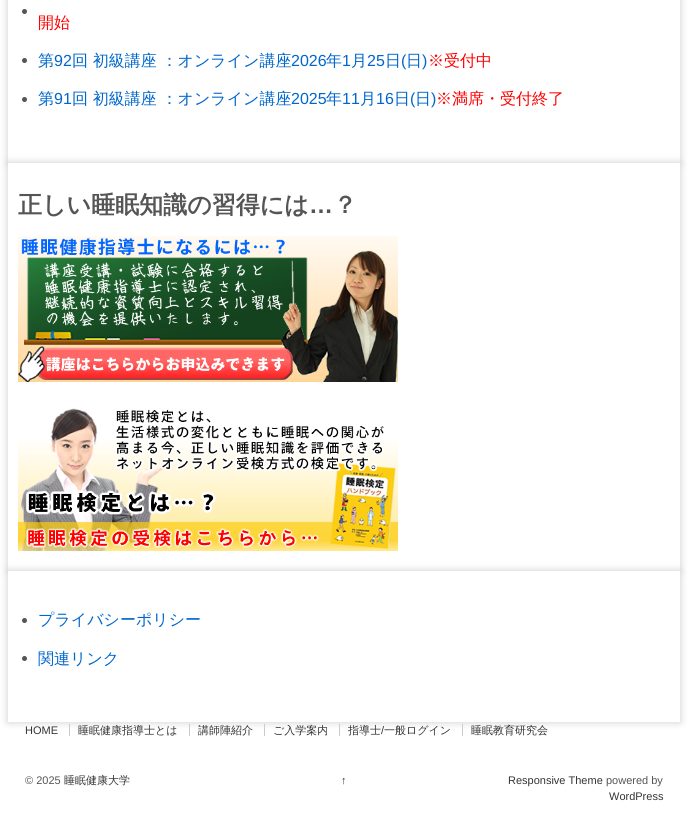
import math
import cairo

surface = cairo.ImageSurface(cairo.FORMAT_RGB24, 688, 818)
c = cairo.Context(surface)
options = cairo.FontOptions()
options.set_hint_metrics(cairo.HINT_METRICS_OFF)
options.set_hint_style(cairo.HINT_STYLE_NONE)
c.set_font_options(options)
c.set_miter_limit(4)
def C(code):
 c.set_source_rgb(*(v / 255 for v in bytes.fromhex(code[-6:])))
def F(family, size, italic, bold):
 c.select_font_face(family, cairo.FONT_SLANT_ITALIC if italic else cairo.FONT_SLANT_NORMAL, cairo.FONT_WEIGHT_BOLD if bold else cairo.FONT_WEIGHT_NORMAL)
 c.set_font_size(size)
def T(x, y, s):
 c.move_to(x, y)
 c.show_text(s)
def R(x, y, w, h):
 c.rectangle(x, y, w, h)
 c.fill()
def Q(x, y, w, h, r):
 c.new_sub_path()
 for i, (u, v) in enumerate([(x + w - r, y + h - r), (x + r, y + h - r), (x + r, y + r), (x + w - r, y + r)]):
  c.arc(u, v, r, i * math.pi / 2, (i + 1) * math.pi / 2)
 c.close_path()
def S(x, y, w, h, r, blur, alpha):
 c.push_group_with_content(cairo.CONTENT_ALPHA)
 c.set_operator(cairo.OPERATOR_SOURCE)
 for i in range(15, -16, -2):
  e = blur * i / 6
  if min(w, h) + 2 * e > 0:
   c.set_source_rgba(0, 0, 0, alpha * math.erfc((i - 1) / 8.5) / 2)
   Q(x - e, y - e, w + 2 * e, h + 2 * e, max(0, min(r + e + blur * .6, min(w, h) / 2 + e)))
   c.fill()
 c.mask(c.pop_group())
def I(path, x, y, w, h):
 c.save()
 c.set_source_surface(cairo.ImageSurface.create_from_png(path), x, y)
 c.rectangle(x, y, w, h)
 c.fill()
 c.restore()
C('ffffff')
c.paint()
c.save()
c.set_fill_rule(cairo.FILL_RULE_EVEN_ODD)
c.new_path()
c.move_to(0,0)
c.line_to(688,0)
c.line_to(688,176)
c.line_to(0,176)
c.close_path()
c.move_to(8,-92)
c.line_to(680,-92)
c.line_to(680,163)
c.line_to(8,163)
c.close_path()
c.clip()
C('cccccc')
S(8,-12,672,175,0,4,1)
c.restore()
C('555555')
c.arc(24.5,11.5,2.5,0,2 * math.pi)
c.fill()
F('WenQuanYi Zen Hei Medium',16,0,0)
C('ff0000')
T(38,28,'開始')
C('555555')
c.new_path()
c.arc(24.5,60.5,2.5,0,2 * math.pi)
c.fill()
C('0066cc')
T(38,66,'第')
F('Liberation Sans',16,0,0)
T(54,66,'92')
F('WenQuanYi Zen Hei Medium',16,0,0)
T(72,66,'回 初級講座 ：オンライン講座')
F('Liberation Sans',16,0,0)
T(291,66,'2026')
F('WenQuanYi Zen Hei Medium',16,0,0)
T(326,66,'年')
F('Liberation Sans',16,0,0)
T(342,66,'1')
F('WenQuanYi Zen Hei Medium',16,0,0)
T(351,66,'月')
F('Liberation Sans',16,0,0)
T(367,66,'25')
F('WenQuanYi Zen Hei Medium',16,0,0)
T(385,66,'日')
F('Liberation Sans',16,0,0)
T(401,66,'(')
F('WenQuanYi Zen Hei Medium',16,0,0)
T(406,66,'日')
F('Liberation Sans',16,0,0)
T(422,66,')')
F('WenQuanYi Zen Hei Medium',16,0,0)
C('ff0000')
T(428,66,'※受付中')
C('555555')
c.new_path()
c.arc(24.5,99.5,2.5,0,2 * math.pi)
c.fill()
C('0066cc')
T(38,104,'第')
F('Liberation Sans',16,0,0)
T(54,104,'91')
F('WenQuanYi Zen Hei Medium',16,0,0)
T(72,104,'回 初級講座 ：オンライン講座')
F('Liberation Sans',16,0,0)
T(291,104,'2025')
F('WenQuanYi Zen Hei Medium',16,0,0)
T(326,104,'年')
F('Liberation Sans',16,0,0)
T(342,104,'11')
F('WenQuanYi Zen Hei Medium',16,0,0)
T(360,104,'月')
F('Liberation Sans',16,0,0)
T(376,104,'16')
F('WenQuanYi Zen Hei Medium',16,0,0)
T(394,104,'日')
F('Liberation Sans',16,0,0)
T(410,104,'(')
F('WenQuanYi Zen Hei Medium',16,0,0)
T(415,104,'日')
F('Liberation Sans',16,0,0)
T(431,104,')')
F('WenQuanYi Zen Hei Medium',16,0,0)
C('ff0000')
T(436,104,'※満席・受付終了')
C('cccccc')
S(8,163,672,408,0,4,1)
C('ffffff')
R(8,163,672,408)
F('WenQuanYi Zen Hei',24,0,1)
C('555555')
T(18,213,'正しい睡眠知識の習得には')
F('Liberation Sans',24,0,1)
T(309,213,'…')
F('WenQuanYi Zen Hei',24,0,1)
T(333,213,'？')
I('1.png',18,236,380,146)
I('2.png',18,408,380,143)
C('cccccc')
R(69,724,1,12)
R(189,724,1,12)
R(264,724,1,12)
R(339,724,1,12)
R(462,724,1,12)
C('cccccc')
S(8,571,672,151,0,4,1)
C('ffffff')
R(8,571,672,151)
C('555555')
c.arc(24.5,620.5,2.5,0,2 * math.pi)
c.fill()
F('WenQuanYi Zen Hei Medium',16,0,0)
C('0066cc')
T(38,625,'プライバシーポリシー')
C('555555')
c.new_path()
c.arc(24.5,658.5,2.5,0,2 * math.pi)
c.fill()
C('0066cc')
T(38,664,'関連リンク')
F('Liberation Sans',11,0,0)
C('333333')
T(25,734,'HOME')
F('WenQuanYi Zen Hei Medium',11,0,0)
T(78,734,'睡眠健康指導士とは')
T(198,734,'講師陣紹介')
T(273,734,'ご入学案内')
T(348,734,'指導士')
F('Liberation Sans',11,0,0)
T(381,734,'/')
F('WenQuanYi Zen Hei Medium',11,0,0)
T(384,734,'一般ログイン')
T(471,734,'睡眠教育研究会')
F('Liberation Sans',11,0,0)
C('555555')
T(25,784,'© 2025')
F('WenQuanYi Zen Hei Medium',11,0,0)
C('333333')
T(64,784,'睡眠健康大学')
F('Liberation Sans',11,0,0)
T(341,784,'↑')
T(508,784,'Responsive Theme')
C('555555')
T(606,784,'powered by')
C('333333')
T(609,800,'WordPress')
surface.write_to_png('o.png')
